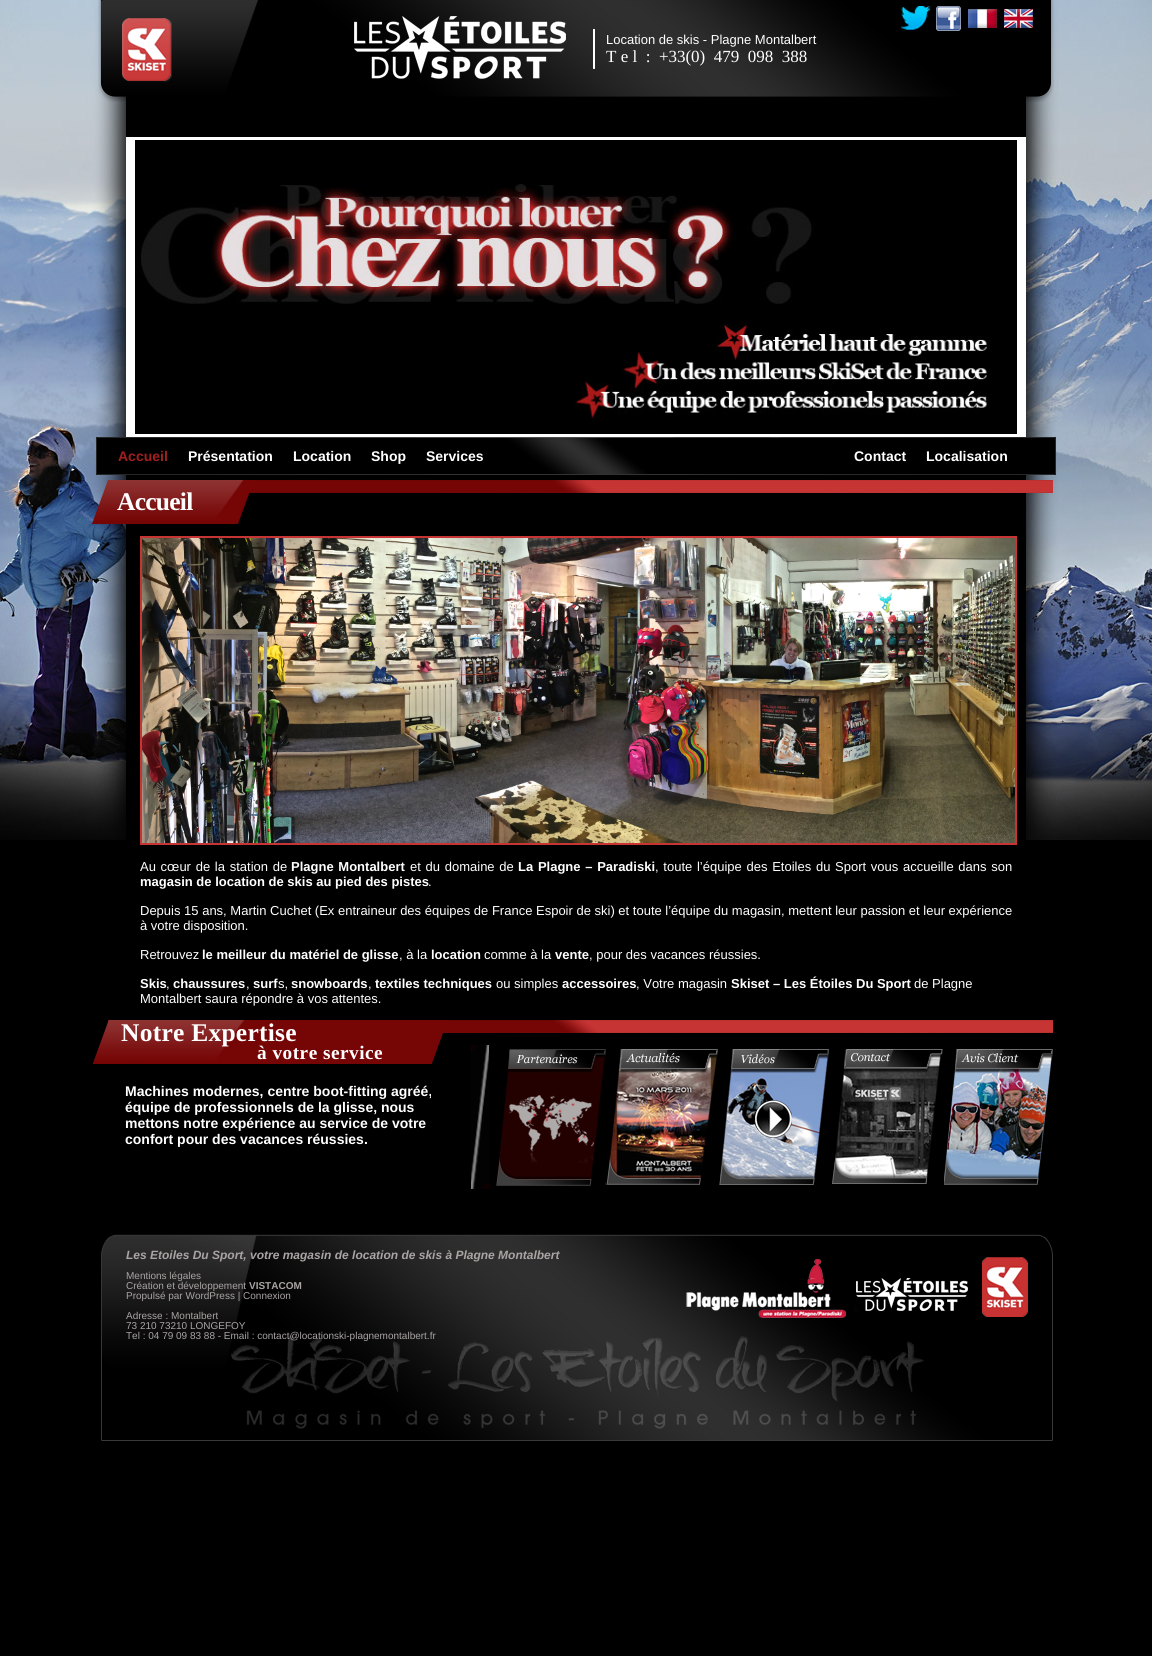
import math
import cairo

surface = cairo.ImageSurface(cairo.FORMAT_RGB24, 1152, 1656)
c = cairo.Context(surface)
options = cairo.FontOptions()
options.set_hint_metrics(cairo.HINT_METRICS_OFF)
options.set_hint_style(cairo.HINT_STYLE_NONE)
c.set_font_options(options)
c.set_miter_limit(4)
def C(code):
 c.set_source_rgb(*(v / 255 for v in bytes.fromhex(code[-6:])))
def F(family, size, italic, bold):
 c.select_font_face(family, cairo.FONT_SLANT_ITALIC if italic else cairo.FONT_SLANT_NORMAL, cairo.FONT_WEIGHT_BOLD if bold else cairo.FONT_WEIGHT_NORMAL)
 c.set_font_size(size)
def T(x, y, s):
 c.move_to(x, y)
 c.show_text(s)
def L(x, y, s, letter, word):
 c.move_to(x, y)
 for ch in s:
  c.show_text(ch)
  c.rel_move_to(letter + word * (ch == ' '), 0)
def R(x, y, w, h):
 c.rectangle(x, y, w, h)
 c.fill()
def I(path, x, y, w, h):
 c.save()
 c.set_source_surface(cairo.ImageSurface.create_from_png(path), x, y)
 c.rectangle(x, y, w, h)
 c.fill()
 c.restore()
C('000000')
c.paint()
I('1.png',0,0,1152,840)
I('2.png',98,0,956,102)
I('3.png',901,6,29,24)
I('4.png',936,6,25,25)
I('5.png',968,9,29,19)
I('6.png',1004,9,29,19)
F('Liberation Sans',13,0,0)
C('ffffff')
T(606,44,'Location de skis - Plagne Montalbert')
F('Liberation Serif',17,0,0)
T(606,62,'T e l  :  +33(0)  479  098  388')
R(126,137,900,300)
I('7.png',135,140,882,294)
I('8.png',96,437,960,38)
F('Liberation Sans',14,0,1)
C('a21f1f')
T(118,461,'Accueil')
C('ffffff')
T(188,461,'Présentation')
T(293,461,'Location')
T(371,461,'Shop')
T(426,461,'Services')
T(854,461,'Contact')
T(926,461,'Localisation')
I('9.png',249,480,804,13)
I('10.png',92,480,162,44)
F('Liberation Serif',25.5,0,1)
L(117,510,'Accueil',-.75,0)
c.rectangle(141,537,875,307)
C('c63434')
c.stroke()
I('11.png',142,538,873,305)
F('Liberation Sans',13,0,0)
C('ffffff')
L(140,871,'Au cœur de la station de',0,1.1)
F('Liberation Sans',13,0,1)
L(291,871,'Plagne Montalbert',0,1.1)
F('Liberation Sans',13,0,0)
L(410,871,'et du domaine de',0,1.1)
F('Liberation Sans',13,0,1)
L(518,871,'La Plagne – Paradiski',0,1.1)
F('Liberation Sans',13,0,0)
L(655,871,', toute l’équipe des Etoiles du Sport vous accueille dans son',0,1.1)
F('Liberation Sans',13,0,1)
T(140,886,'magasin de location de skis au pied des pistes')
F('Liberation Sans',13,0,0)
T(428,886,'.')
T(140,915,'Depuis 15 ans, Martin Cuchet (Ex entraineur des équipes de France Espoir de ski) et toute l’équipe du magasin, mettent leur passion et leur expérience')
T(140,930,'à votre disposition.')
T(140,959,'Retrouvez')
F('Liberation Sans',13,0,1)
T(202,959,'le meilleur du matériel de glisse')
F('Liberation Sans',13,0,0)
T(399,959,', à la')
F('Liberation Sans',13,0,1)
T(431,959,'location')
F('Liberation Sans',13,0,0)
T(484,959,'comme à la')
F('Liberation Sans',13,0,1)
T(555,959,'vente')
F('Liberation Sans',13,0,0)
T(589,959,', pour des vacances réussies.')
F('Liberation Sans',13,0,1)
T(140,988,'Skis')
F('Liberation Sans',13,0,0)
T(166,988,',')
F('Liberation Sans',13,0,1)
T(173,988,'chaussures')
F('Liberation Sans',13,0,0)
T(246,988,',')
F('Liberation Sans',13,0,1)
T(253,988,'surf')
F('Liberation Sans',13,0,0)
T(278,988,'s,')
F('Liberation Sans',13,0,1)
T(291,988,'snowboards')
F('Liberation Sans',13,0,0)
T(368,988,',')
F('Liberation Sans',13,0,1)
T(375,988,'textiles techniques')
F('Liberation Sans',13,0,0)
T(496,988,'ou simples')
F('Liberation Sans',13,0,1)
T(562,988,'accessoires')
F('Liberation Sans',13,0,0)
T(636,988,', Votre magasin')
F('Liberation Sans',13,0,1)
T(731,988,'Skiset – Les Étoiles Du Sport')
F('Liberation Sans',13,0,0)
T(914,988,'de Plagne')
T(140,1003,'Montalbert saura répondre à vos attentes.')
I('12.png',108,1020,945,13)
I('13.png',92,1020,356,44)
F('Liberation Serif',25.5,0,1)
L(121,1041,'Notre Expertise',.25,0)
F('Liberation Serif',19.25,0,1)
L(257,1059,'à votre service',.5,0)
I('14.png',471,1045,18,144)
I('15.png',496,1049,110,137)
I('16.png',606,1049,112,136)
I('17.png',719,1049,110,136)
I('18.png',832,1049,111,135)
I('19.png',944,1049,109,136)
F('Liberation Sans',14,0,1)
T(125,1096,'Machines modernes, centre boot-fitting agréé,')
T(125,1112,'équipe de professionnels de la glisse, nous')
T(125,1128,'mettons notre expérience au service de votre')
T(125,1144,'confort pour des vacances réussies.')
I('20.png',101,1234,952,207)
F('Liberation Sans',12,1,1)
C('aaa4a4')
T(126,1259,'Les Etoiles Du Sport, votre magasin de location de skis à Plagne Montalbert')
F('Liberation Sans',10,0,0)
T(126,1279,'Mentions légales')
T(126,1289,'Création et développement')
F('Liberation Sans',10,0,1)
T(249,1289,'VISTACOM')
F('Liberation Sans',10,0,0)
T(126,1299,'Propulsé par WordPress | Connexion')
T(126,1319,'Adresse : Montalbert')
T(126,1329,'73 210 73210 LONGEFOY')
T(126,1339,'Tel : 04 79 09 83 88 - Email : contact@locationski-plagnemontalbert.fr')
surface.write_to_png('o.png')
